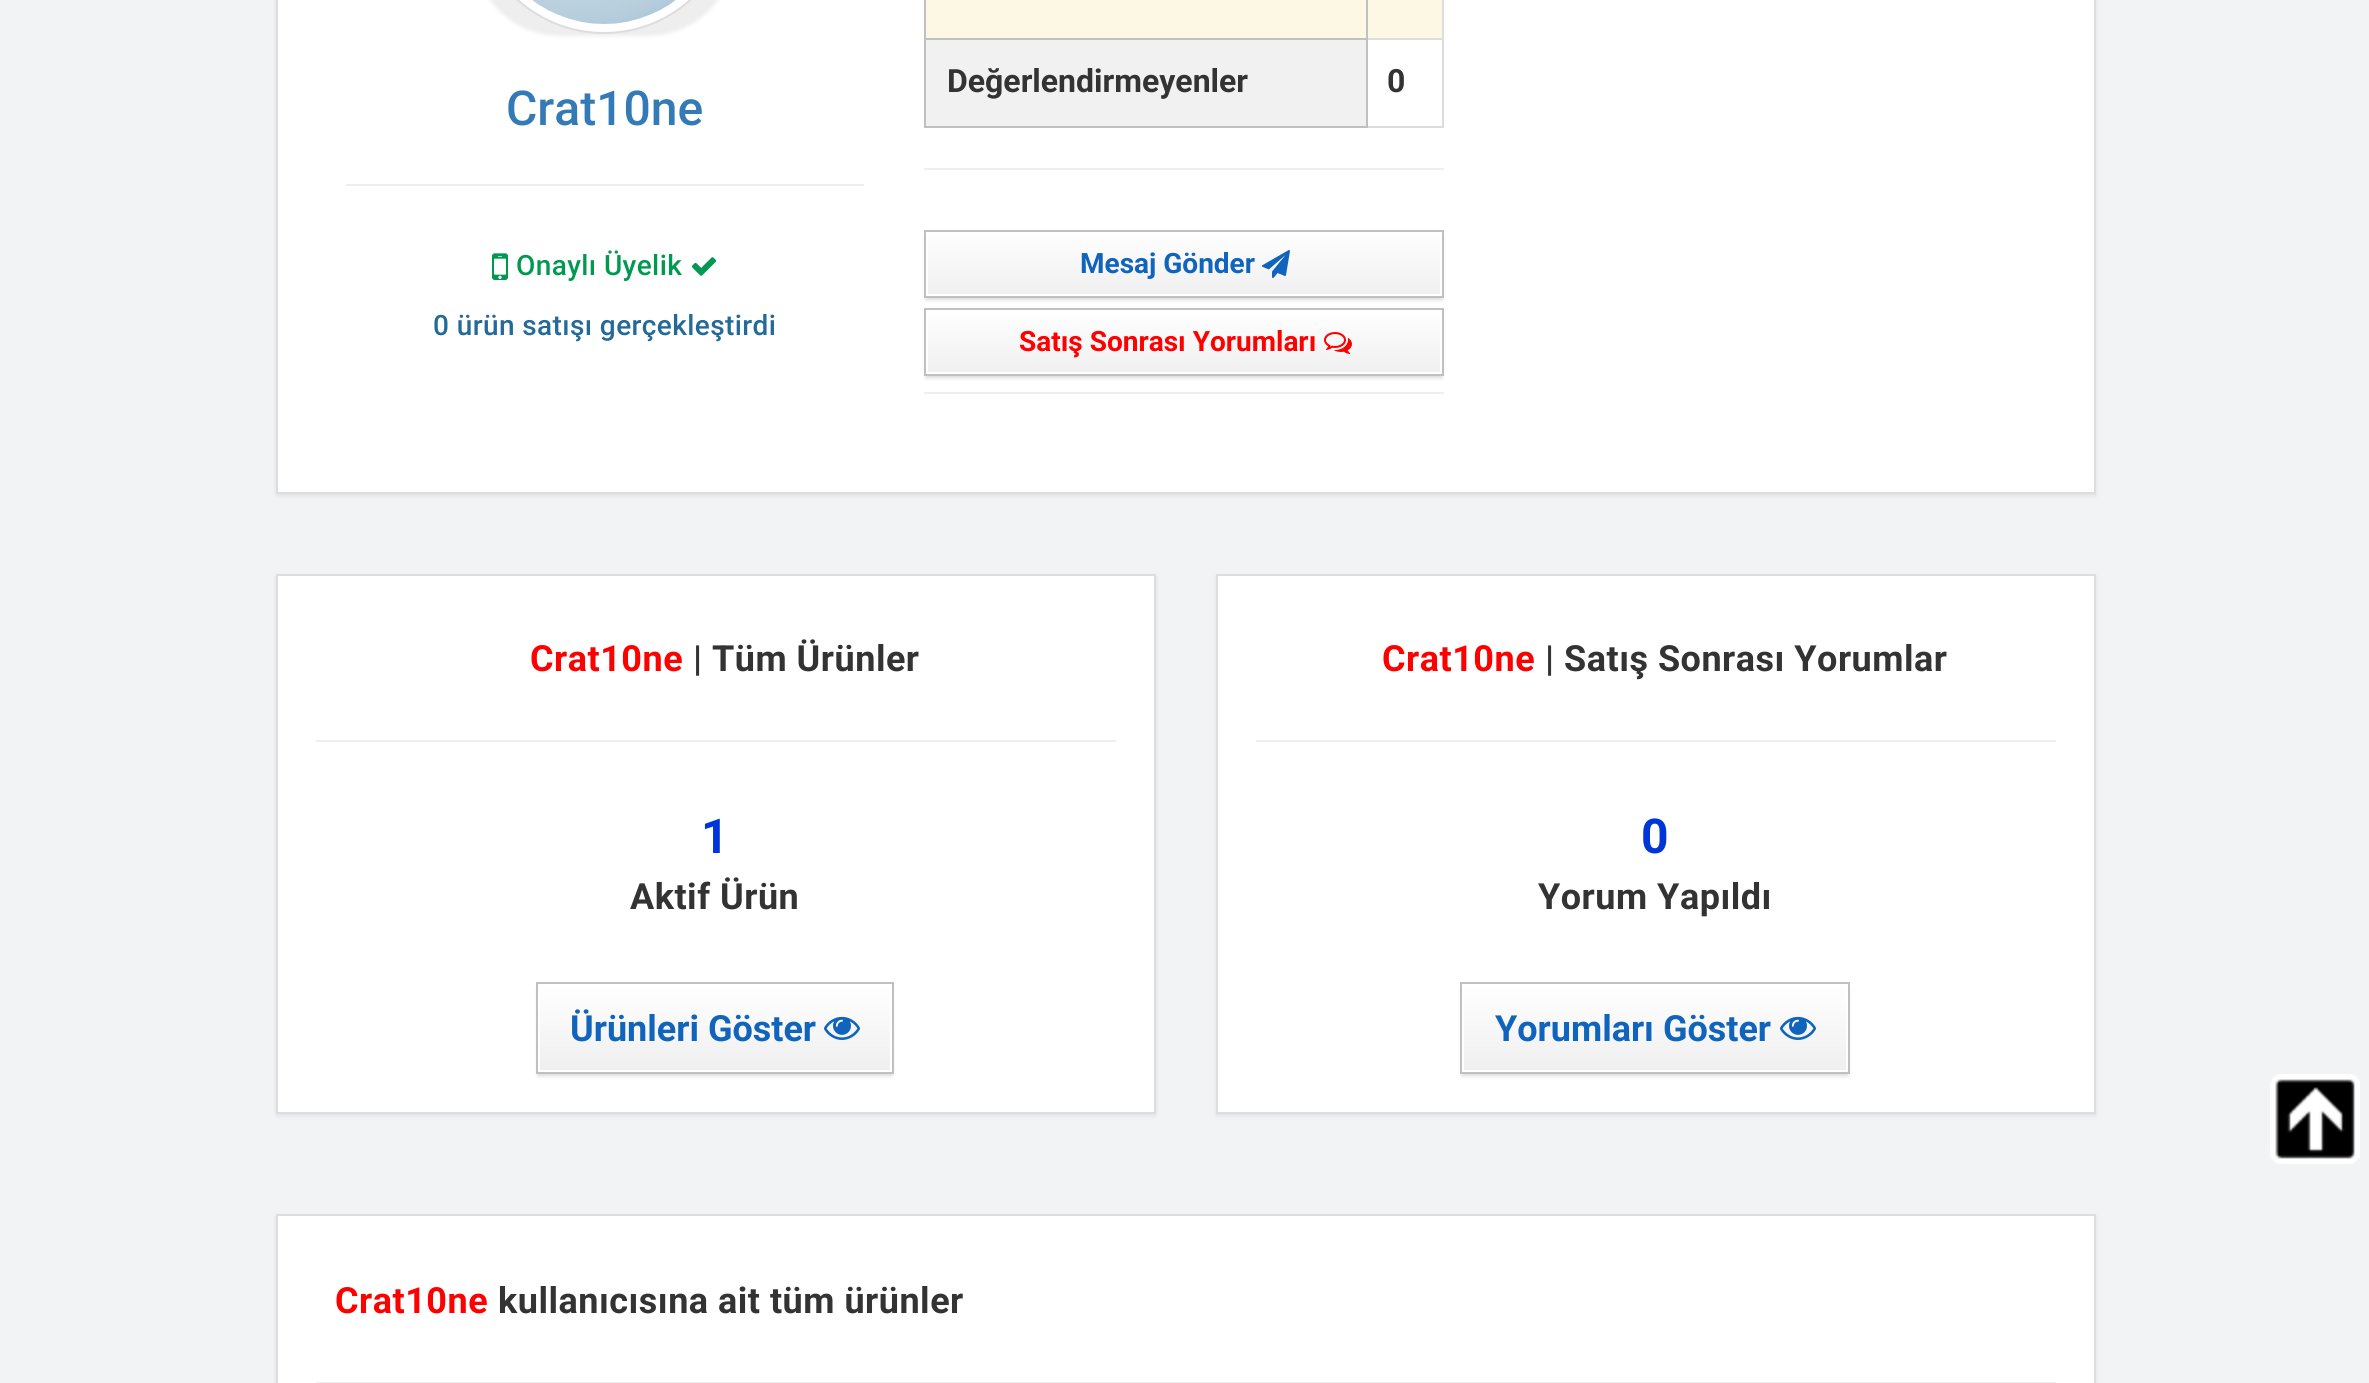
import math
import cairo

surface = cairo.ImageSurface(cairo.FORMAT_RGB24, 2369, 1383)
c = cairo.Context(surface)
options = cairo.FontOptions()
options.set_hint_metrics(cairo.HINT_METRICS_OFF)
options.set_hint_style(cairo.HINT_STYLE_NONE)
c.set_font_options(options)
c.set_miter_limit(4)
def C(code):
 c.set_source_rgb(*(v / 255 for v in bytes.fromhex(code[-6:])))
def F(family, size, italic, bold):
 c.select_font_face(family, cairo.FONT_SLANT_ITALIC if italic else cairo.FONT_SLANT_NORMAL, cairo.FONT_WEIGHT_BOLD if bold else cairo.FONT_WEIGHT_NORMAL)
 c.set_font_size(size)
def T(x, y, s):
 c.move_to(x, y)
 c.show_text(s)
def L(x, y, s, letter, word):
 c.move_to(x, y)
 for ch in s:
  c.show_text(ch)
  c.rel_move_to(letter + word * (ch == ' '), 0)
def R(x, y, w, h):
 c.rectangle(x, y, w, h)
 c.fill()
def Q(x, y, w, h, r):
 c.new_sub_path()
 for i, (u, v) in enumerate([(x + w - r, y + h - r), (x + r, y + h - r), (x + r, y + r), (x + w - r, y + r)]):
  c.arc(u, v, r, i * math.pi / 2, (i + 1) * math.pi / 2)
 c.close_path()
def S(x, y, w, h, r, blur, alpha):
 c.push_group_with_content(cairo.CONTENT_ALPHA)
 c.set_operator(cairo.OPERATOR_SOURCE)
 for i in range(15, -16, -2):
  e = blur * i / 6
  if min(w, h) + 2 * e > 0:
   c.set_source_rgba(0, 0, 0, alpha * math.erfc((i - 1) / 8.5) / 2)
   Q(x - e, y - e, w + 2 * e, h + 2 * e, max(0, min(r + e + blur * .6, min(w, h) / 2 + e)))
   c.fill()
 c.mask(c.pop_group())
def I(path, x, y, w, h):
 c.save()
 c.set_source_surface(cairo.ImageSurface.create_from_png(path), x, y)
 c.rectangle(x, y, w, h)
 c.fill()
 c.restore()
C('f1f3f4')
c.paint()
C('000000')
S(276,-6,1820,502,0,2,.07)
C('ffffff')
c.rectangle(277,-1,1818,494)
c.fill_preserve()
C('dddddd')
c.stroke()
C('000000')
S(474,-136,260,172,130,2,.07)
C('ffffff')
Q(475,-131,258,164,129)
c.fill_preserve()
C('dddddd')
c.stroke()
I('1.png',532,0,144,24)
F('Roboto Medium',48,0,0)
C('337ab7')
T(506,125,'Crat10ne')
C('eeeeee')
R(346,184,518,2)
I('2.png',492,253,16,27)
F('Roboto Medium',28,0,0)
C('009950')
L(516,275,'Onaylı Üyelik',.4,0)
I('3.png',691,257,26,19)
C('236a99')
L(433,335,'0 ürün satışı gerçekleştirdi',.4,0)
C('dddddd')
R(1442,0,2,128)
R(1368,126,76,2)
C('fcf8e3')
R(926,0,440,38)
C('c0c0c0')
R(924,38,444,2)
R(1366,38,2,90)
C('dddddd')
R(1366,38,78,2)
C('c0c0c0')
R(1366,0,2,40)
C('fcf8e3')
R(1368,0,74,38)
C('f1f1f1')
R(926,40,440,86)
C('c0c0c0')
R(924,126,444,2)
R(924,0,2,128)
F('Roboto',32,0,1)
C('333333')
T(947,92,'Değerlendirmeyenler')
T(1387,92,'0')
C('eeeeee')
R(924,168,520,2)
C('000000')
S(926,236,516,64,0,2,.15)
gradient = cairo.LinearGradient(1184,232,1184,296)
gradient.add_color_stop_rgba(0,1,1,1,1)
gradient.add_color_stop_rgba(1,0.937,0.937,0.937,1)
c.set_source(gradient)
R(928,234,512,60)
c.rectangle(927,233,514,62)
C('ffffff')
c.stroke()
c.rectangle(925,231,518,66)
C('c0c0c0')
c.stroke()
F('Roboto',28,0,1)
C('1064bc')
T(1080,273,'Mesaj Gönder')
I('4.png',1262,250,28,28)
C('000000')
S(926,314,516,64,0,2,.15)
gradient = cairo.LinearGradient(1184,310,1184,374)
gradient.add_color_stop_rgba(0,1,1,1,1)
gradient.add_color_stop_rgba(1,0.937,0.937,0.937,1)
c.set_source(gradient)
R(928,312,512,60)
c.rectangle(927,311,514,62)
C('ffffff')
c.stroke()
c.rectangle(925,309,518,66)
C('c0c0c0')
c.stroke()
C('ff0000')
T(1019,351,'Satış Sonrası Yorumları')
I('5.png',1324,332,28,22)
C('eeeeee')
R(924,392,520,2)
C('000000')
S(276,576,880,540,0,2,.07)
C('ffffff')
c.rectangle(277,575,878,538)
c.fill_preserve()
C('dddddd')
c.stroke()
F('Roboto',36,0,1)
C('ff0000')
L(530,671,'Crat10ne',.5,0)
C('333333')
L(693,671,'| Tüm Ürünler',.5,0)
C('eeeeee')
R(316,740,800,2)
F('Roboto',48,0,1)
C('0036d9')
T(701,853,'1')
F('Roboto',36,0,1)
C('333333')
L(630,909,'Aktif Ürün',.5,0)
C('000000')
S(538,988,354,88,0,2,.15)
gradient = cairo.LinearGradient(715,984,715,1072)
gradient.add_color_stop_rgba(0,1,1,1,1)
gradient.add_color_stop_rgba(1,0.937,0.937,0.937,1)
c.set_source(gradient)
R(540,986,350,84)
c.rectangle(539,985,352,86)
C('ffffff')
c.stroke()
c.rectangle(537,983,356,90)
C('c0c0c0')
c.stroke()
C('1064bc')
T(570,1041,'Ürünleri Göster')
I('6.png',824,1016,36,24)
C('000000')
S(1216,576,880,540,0,2,.07)
C('ffffff')
c.rectangle(1217,575,878,538)
c.fill_preserve()
C('dddddd')
c.stroke()
C('ff0000')
L(1382,671,'Crat10ne',.5,0)
C('333333')
L(1545,671,'| Satış Sonrası Yorumlar',.5,0)
C('eeeeee')
R(1256,740,800,2)
F('Roboto',48,0,1)
C('0036d9')
T(1641,853,'0')
F('Roboto',36,0,1)
C('333333')
L(1538,909,'Yorum Yapıldı',.5,0)
C('000000')
S(1462,988,386,88,0,2,.15)
gradient = cairo.LinearGradient(1655,984,1655,1072)
gradient.add_color_stop_rgba(0,1,1,1,1)
gradient.add_color_stop_rgba(1,0.937,0.937,0.937,1)
c.set_source(gradient)
R(1464,986,382,84)
c.rectangle(1463,985,384,86)
C('ffffff')
c.stroke()
c.rectangle(1461,983,388,90)
C('c0c0c0')
c.stroke()
C('1064bc')
T(1495,1041,'Yorumları Göster')
I('6.png',1780,1016,36,24)
C('000000')
S(276,1216,1820,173,0,2,.07)
C('ffffff')
c.rectangle(277,1215,1818,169)
c.fill_preserve()
C('dddddd')
c.stroke()
C('ff0000')
L(335,1313,'Crat10ne',.5,0)
C('333333')
L(498,1313,'kullanıcısına ait tüm ürünler',.5,0)
C('eeeeee')
R(316,1382,1740,1)
I('7.png',2270,1074,90,90)
surface.write_to_png('o.png')
